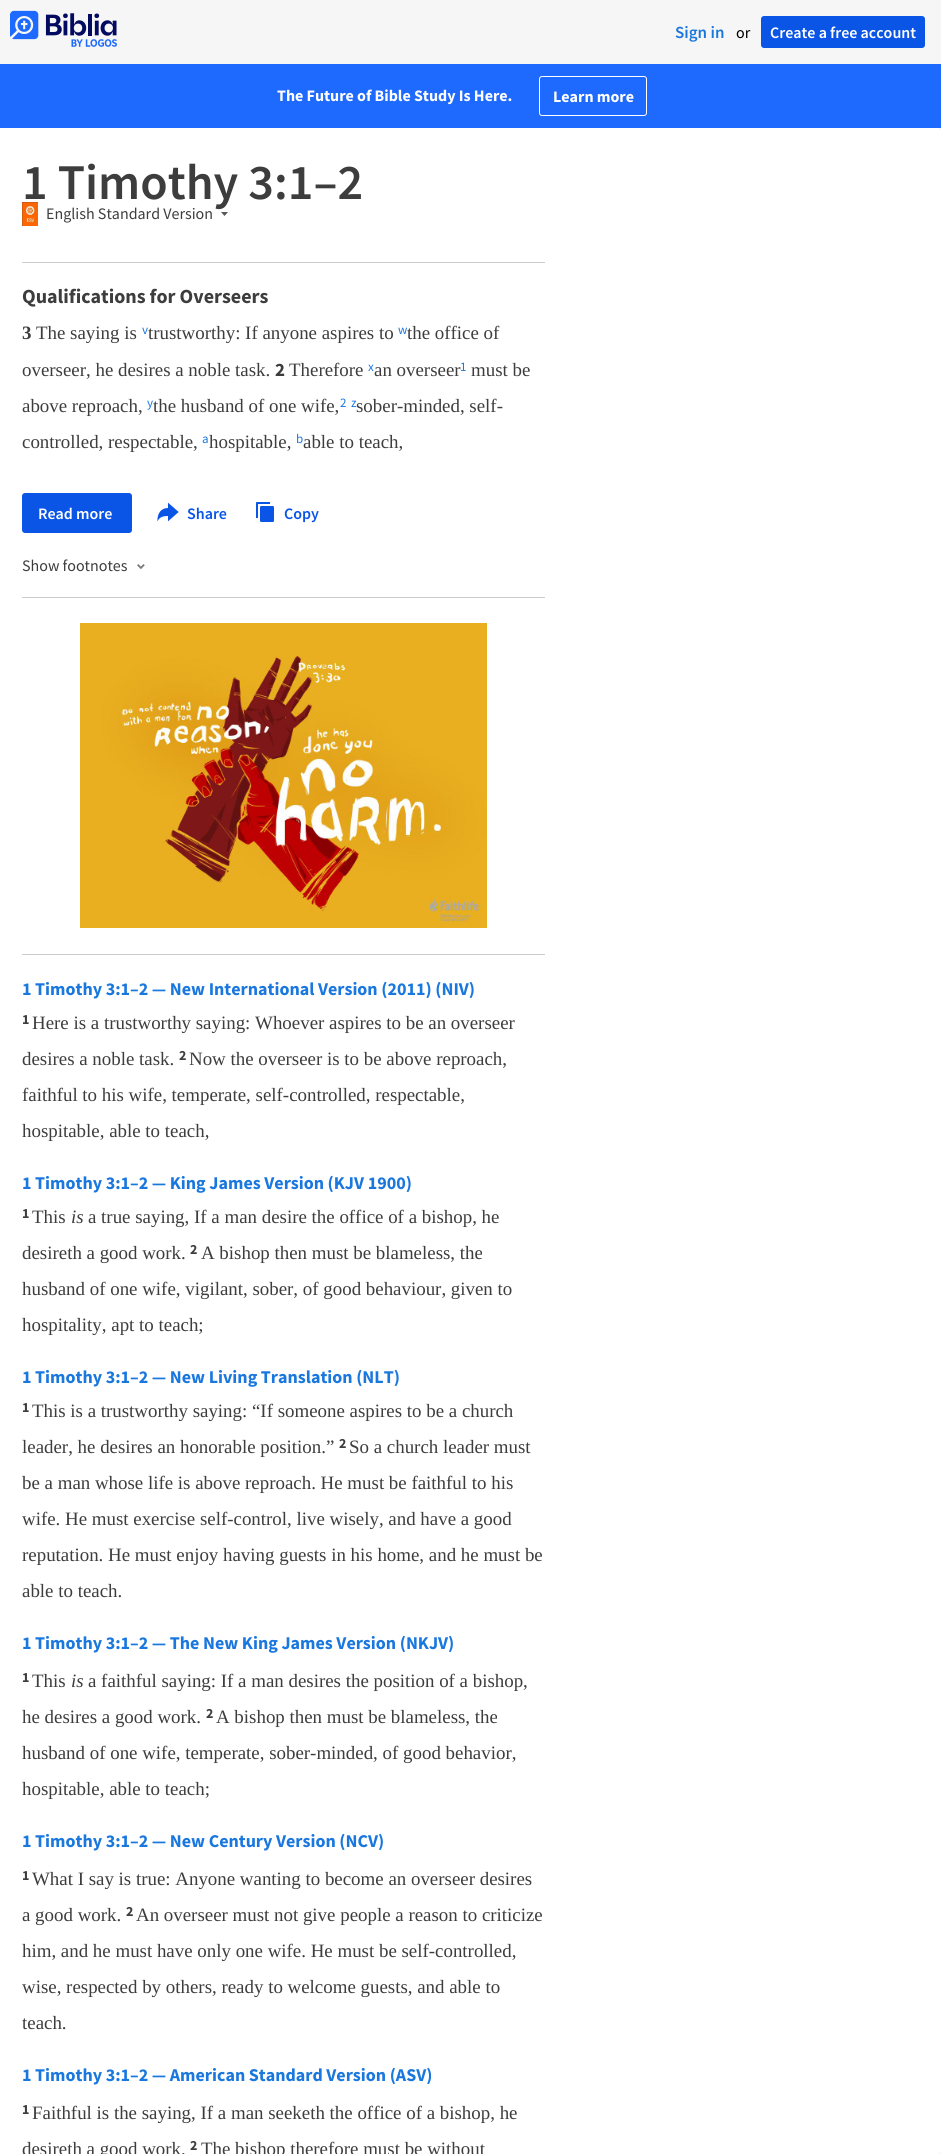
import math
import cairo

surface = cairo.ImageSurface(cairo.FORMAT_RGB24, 941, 2154)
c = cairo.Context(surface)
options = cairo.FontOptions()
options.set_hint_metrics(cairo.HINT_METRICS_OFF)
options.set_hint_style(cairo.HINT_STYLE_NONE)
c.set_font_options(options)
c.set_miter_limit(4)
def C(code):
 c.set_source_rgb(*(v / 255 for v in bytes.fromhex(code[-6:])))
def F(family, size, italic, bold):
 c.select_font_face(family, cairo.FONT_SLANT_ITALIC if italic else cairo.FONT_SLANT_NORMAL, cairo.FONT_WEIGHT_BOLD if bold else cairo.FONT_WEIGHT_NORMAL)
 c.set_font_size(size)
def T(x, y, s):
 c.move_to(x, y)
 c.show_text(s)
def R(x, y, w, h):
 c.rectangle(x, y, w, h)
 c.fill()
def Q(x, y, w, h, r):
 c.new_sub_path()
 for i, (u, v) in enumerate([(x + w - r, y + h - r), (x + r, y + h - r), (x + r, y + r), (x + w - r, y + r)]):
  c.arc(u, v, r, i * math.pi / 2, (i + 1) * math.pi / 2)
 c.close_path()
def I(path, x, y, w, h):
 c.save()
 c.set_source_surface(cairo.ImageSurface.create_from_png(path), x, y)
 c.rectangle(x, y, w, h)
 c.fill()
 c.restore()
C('f6f6f6')
c.paint()
I('1.png',10,10,107,37)
F('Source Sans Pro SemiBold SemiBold',17,0,0)
C('1977de')
T(675,38,'Sign in')
F('Source Sans Pro',16,0,0)
C('000000')
T(736,38,'or')
C('0a55e6')
Q(761,16,164,32,3)
c.fill()
F('Source Sans Pro SemiBold SemiBold',16,0,0)
C('ffffff')
T(770,38,'Create a free account')
C('1e6afe')
R(0,64,941,64)
F('Source Sans Pro',16,0,1)
C('ffffff')
T(277,101,'The Future of Bible Study Is Here.')
Q(539.5,76.5,107,39,2.5)
c.set_line_width(1)
c.stroke()
T(553,102,'Learn more')
Q(-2,128,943,2026,4)
c.fill()
C('cccccc')
R(22,262,523,1)
F('Source Sans Pro SemiBold SemiBold',50,0,0)
C('3d3d3d')
T(22,199,'1 Timothy 3:1–2')
I('2.png',22,202,16,24)
F('Source Sans Pro',16,0,0)
T(46,219,'English Standard Version')
C('585858')
c.set_fill_rule(cairo.FILL_RULE_EVEN_ODD)
c.new_path()
c.move_to(224.5,216)
c.line_to(228,212)
c.line_to(221,212)
c.close_path()
c.fill()
F('Source Sans Pro',20,0,1)
C('3d3d3d')
T(22,303,'Qualifications for Overseers')
F('Liberation Serif',18.9,0,1)
T(22,339,'3')
F('Liberation Serif',18.9,0,0)
T(36,339,'The saying is')
F('Source Sans Pro',13,0,0)
C('1977de')
T(142,334,'v')
F('Liberation Serif',18.9,0,0)
C('3d3d3d')
T(148,339,'trustworthy: If anyone aspires to')
F('Source Sans Pro',13,0,0)
C('1977de')
T(398,334,'w')
F('Liberation Serif',18.9,0,0)
C('3d3d3d')
T(407,339,'the office of')
T(22,376,'overseer, he desires a noble task.')
F('Source Sans Pro',18.9,0,1)
T(275,376,'2')
F('Liberation Serif',18.9,0,0)
T(289,376,'Therefore')
F('Source Sans Pro',13,0,0)
C('1977de')
T(368,371,'x')
F('Liberation Serif',18.9,0,0)
C('3d3d3d')
T(374,376,'an overseer')
F('Source Sans Pro',13,0,0)
C('1977de')
T(460,371,'1')
F('Liberation Serif',18.9,0,0)
C('3d3d3d')
T(471,376,'must be')
T(22,412,'above reproach,')
F('Source Sans Pro',13,0,0)
C('1977de')
T(147,407,'y')
F('Liberation Serif',18.9,0,0)
C('3d3d3d')
T(153,412,'the husband of one wife,')
F('Source Sans Pro',13,0,0)
C('1977de')
T(340,407,'2')
T(351,407,'z')
F('Liberation Serif',18.9,0,0)
C('3d3d3d')
T(356,412,'sober-minded, self-')
T(22,448,'controlled, respectable,')
F('Source Sans Pro',13,0,0)
C('1977de')
T(202,443,'a')
F('Liberation Serif',18.9,0,0)
C('3d3d3d')
T(209,448,'hospitable,')
F('Source Sans Pro',13,0,0)
C('1977de')
T(296,443,'b')
F('Liberation Serif',18.9,0,0)
C('3d3d3d')
T(303,448,'able to teach,')
C('0a55e6')
Q(22,493,110,40,3)
c.fill()
F('Source Sans Pro SemiBold SemiBold',16,0,0)
C('ffffff')
T(38,519,'Read more')
I('3.png',157,502,22,20)
C('0a55e6')
T(187,519,'Share')
I('4.png',256,502,18,20)
T(284,519,'Copy')
F('Source Sans Pro',16,0,0)
C('3d3d3d')
T(22,571,'Show footnotes')
I('5.png',137,564,8,6)
C('cccccc')
R(22,597,523,1)
I('6.png',80,623,407,305)
R(22,954,523,1)
F('Source Sans Pro',18,0,1)
C('1977de')
T(22,995,'1 Timothy 3:1–2 — New International Version (2011) (NIV)')
F('Source Sans Pro',14,0,1)
C('3d3d3d')
T(22,1024,'1')
F('Liberation Serif',18.9,0,0)
T(32,1029,'Here is a trustworthy saying: Whoever aspires to be an overseer')
T(22,1065,'desires a noble task.')
F('Source Sans Pro',14,0,1)
T(179,1060,'2')
F('Liberation Serif',18.9,0,0)
T(189,1065,'Now the overseer is to be above reproach,')
T(22,1101,'faithful to his wife, temperate, self-controlled, respectable,')
T(22,1137,'hospitable, able to teach,')
F('Source Sans Pro',18,0,1)
C('1977de')
T(22,1189,'1 Timothy 3:1–2 — King James Version (KJV 1900)')
F('Source Sans Pro',14,0,1)
C('3d3d3d')
T(22,1218,'1')
F('Liberation Serif',18.9,0,0)
T(32,1223,'This')
F('Liberation Serif',18.9,1,0)
T(71,1223,'is')
F('Liberation Serif',18.9,0,0)
T(88,1223,'a true saying, If a man desire the office of a bishop, he')
T(22,1259,'desireth a good work.')
F('Source Sans Pro',14,0,1)
T(190,1254,'2')
F('Liberation Serif',18.9,0,0)
T(201,1259,'A bishop then must be blameless, the')
T(22,1295,'husband of one wife, vigilant, sober, of good behaviour, given to')
T(22,1331,'hospitality, apt to teach;')
F('Source Sans Pro',18,0,1)
C('1977de')
T(22,1383,'1 Timothy 3:1–2 — New Living Translation (NLT)')
F('Source Sans Pro',14,0,1)
C('3d3d3d')
T(22,1412,'1')
F('Liberation Serif',18.9,0,0)
T(32,1417,'This is a trustworthy saying: “If someone aspires to be a church')
T(22,1453,'leader, he desires an honorable position.”')
F('Source Sans Pro',14,0,1)
T(339,1448,'2')
F('Liberation Serif',18.9,0,0)
T(349,1453,'So a church leader must')
T(22,1489,'be a man whose life is above reproach. He must be faithful to his')
T(22,1525,'wife. He must exercise self-control, live wisely, and have a good')
T(22,1561,'reputation. He must enjoy having guests in his home, and he must be')
T(22,1597,'able to teach.')
F('Source Sans Pro',18,0,1)
C('1977de')
T(22,1649,'1 Timothy 3:1–2 — The New King James Version (NKJV)')
F('Source Sans Pro',14,0,1)
C('3d3d3d')
T(22,1682,'1')
F('Liberation Serif',18.9,0,0)
T(32,1687,'This')
F('Liberation Serif',18.9,1,0)
T(71,1687,'is')
F('Liberation Serif',18.9,0,0)
T(88,1687,'a faithful saying: If a man desires the position of a bishop,')
T(22,1723,'he desires a good work.')
F('Source Sans Pro',14,0,1)
T(206,1718,'2')
F('Liberation Serif',18.9,0,0)
T(216,1723,'A bishop then must be blameless, the')
T(22,1759,'husband of one wife, temperate, sober-minded, of good behavior,')
T(22,1795,'hospitable, able to teach;')
F('Source Sans Pro',18,0,1)
C('1977de')
T(22,1847,'1 Timothy 3:1–2 — New Century Version (NCV)')
F('Source Sans Pro',14,0,1)
C('3d3d3d')
T(22,1880,'1')
F('Liberation Serif',18.9,0,0)
T(32,1885,'What I say is true: Anyone wanting to become an overseer desires')
T(22,1921,'a good work.')
F('Source Sans Pro',14,0,1)
T(126,1916,'2')
F('Liberation Serif',18.9,0,0)
T(136,1921,'An overseer must not give people a reason to criticize')
T(22,1957,'him, and he must have only one wife. He must be self-controlled,')
T(22,1993,'wise, respected by others, ready to welcome guests, and able to')
T(22,2029,'teach.')
F('Source Sans Pro',18,0,1)
C('1977de')
T(22,2081,'1 Timothy 3:1–2 — American Standard Version (ASV)')
F('Source Sans Pro',14,0,1)
C('3d3d3d')
T(22,2114,'1')
F('Liberation Serif',18.9,0,0)
T(32,2119,'Faithful is the saying, If a man seeketh the office of a bishop, he')
T(22,2155,'desireth a good work.')
F('Source Sans Pro',14,0,1)
T(190,2150,'2')
F('Liberation Serif',18.9,0,0)
T(201,2155,'The bishop therefore must be without')
surface.write_to_png('o.png')
